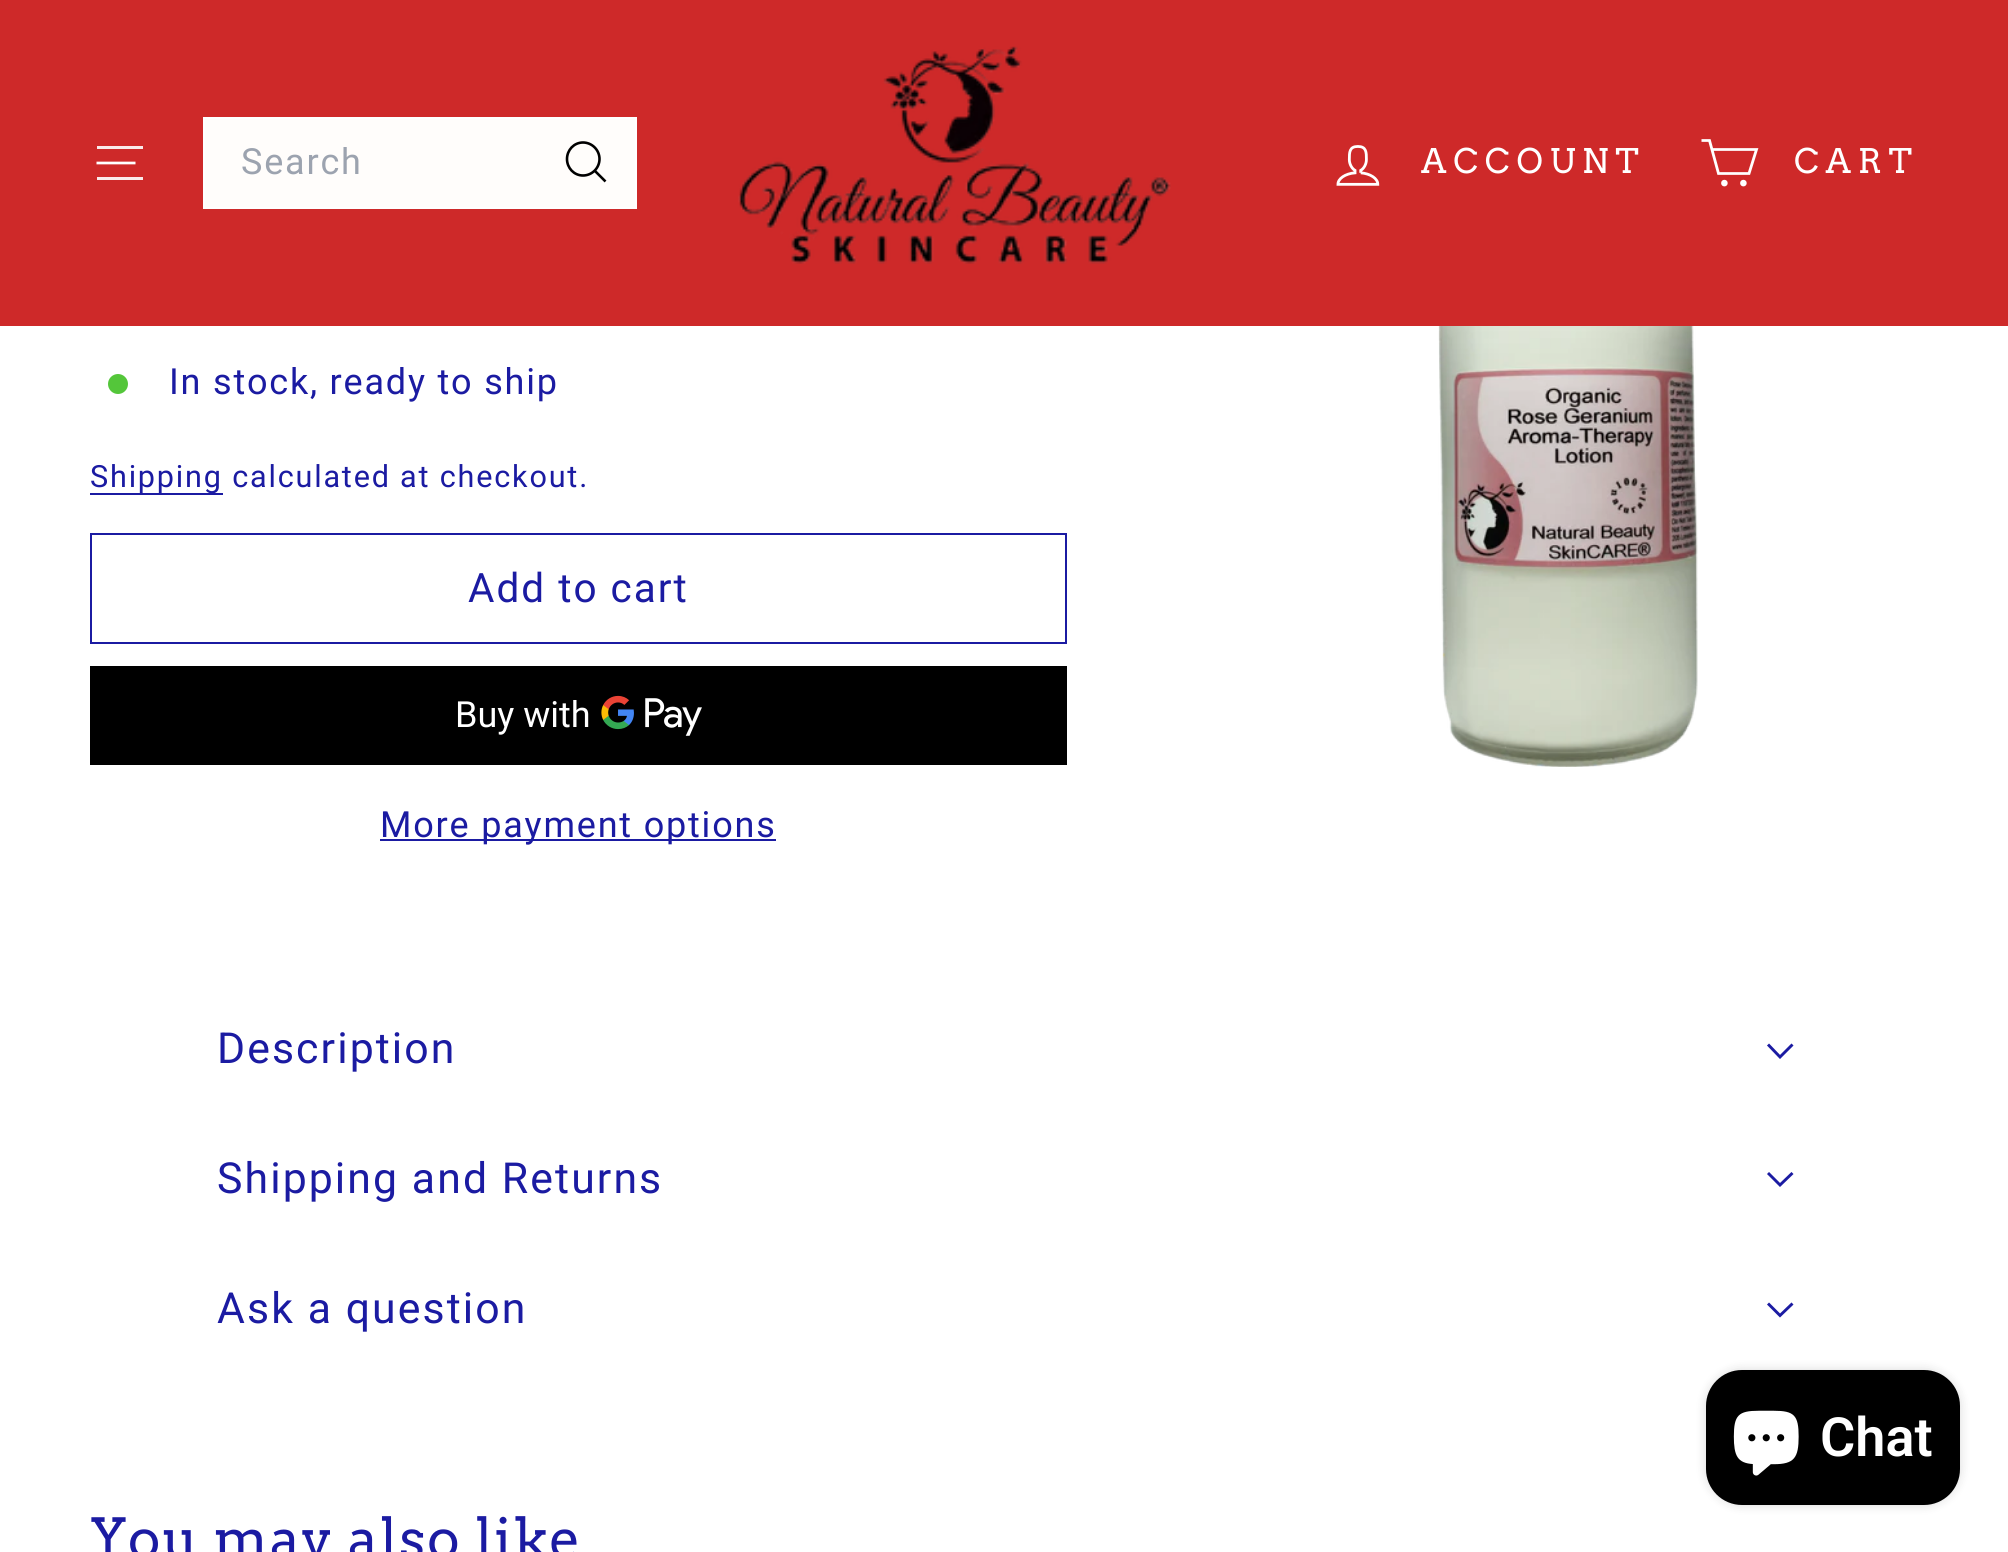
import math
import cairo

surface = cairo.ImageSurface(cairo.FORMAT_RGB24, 2008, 1552)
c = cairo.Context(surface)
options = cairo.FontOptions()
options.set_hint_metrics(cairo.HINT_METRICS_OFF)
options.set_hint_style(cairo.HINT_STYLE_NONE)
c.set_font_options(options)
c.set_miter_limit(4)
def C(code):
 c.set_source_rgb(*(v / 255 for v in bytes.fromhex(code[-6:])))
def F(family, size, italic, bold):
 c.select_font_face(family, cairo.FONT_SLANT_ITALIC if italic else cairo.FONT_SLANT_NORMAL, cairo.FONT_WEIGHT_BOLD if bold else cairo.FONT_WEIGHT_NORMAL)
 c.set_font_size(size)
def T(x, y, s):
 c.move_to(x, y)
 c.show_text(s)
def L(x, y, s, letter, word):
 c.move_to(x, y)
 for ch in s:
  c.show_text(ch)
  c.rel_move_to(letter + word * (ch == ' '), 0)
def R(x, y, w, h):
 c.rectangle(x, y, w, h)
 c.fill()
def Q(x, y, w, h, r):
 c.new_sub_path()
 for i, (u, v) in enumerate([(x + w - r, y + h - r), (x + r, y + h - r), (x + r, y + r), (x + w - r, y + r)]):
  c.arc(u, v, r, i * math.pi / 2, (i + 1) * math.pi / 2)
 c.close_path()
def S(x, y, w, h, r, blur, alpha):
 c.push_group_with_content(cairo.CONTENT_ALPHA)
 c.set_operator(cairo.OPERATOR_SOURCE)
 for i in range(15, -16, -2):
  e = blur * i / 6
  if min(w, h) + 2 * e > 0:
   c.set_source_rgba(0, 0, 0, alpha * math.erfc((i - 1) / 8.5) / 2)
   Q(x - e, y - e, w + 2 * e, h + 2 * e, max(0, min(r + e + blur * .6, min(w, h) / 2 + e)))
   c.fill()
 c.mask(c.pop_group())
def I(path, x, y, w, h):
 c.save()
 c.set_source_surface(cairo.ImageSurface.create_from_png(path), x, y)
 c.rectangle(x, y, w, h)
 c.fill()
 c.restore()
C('ffffff')
c.paint()
C('ce2929')
R(0,0,2008,326)
C('faeaea')
R(97,146,46,3)
c.new_path()
c.move_to(96.5,163)
c.line_to(135.5,163)
C('ffffff')
c.set_line_width(2.7)
c.stroke()
C('faeaea')
R(97,177,46,3)
C('fffdfb')
c.rectangle(204,118,432,90)
c.fill_preserve()
C('ffffff')
c.set_line_width(2)
c.stroke()
F('Roboto',36,0,0)
C('9ca3af')
L(241,174,'Search',1.8,0)
c.new_path()
c.move_to(599.5,159)
c.curve_to(599.5,168,592,175.5,583,175.5)
c.curve_to(574,175.5,567,168,567,159)
c.curve_to(567,150,574,142.5,583,142.5)
c.curve_to(592,142.5,599.5,150,599.5,159)
c.move_to(605.5,181.5)
c.line_to(595,171)
C('000000')
c.set_line_width(2.6)
c.stroke()
I('1.png',738,46,433,218)
I('2.png',1336,145,44,41)
F('Arvo',33.75,0,0)
C('ffffff')
L(1421,173,'ACCOUNT',6.75,0)
c.new_path()
c.move_to(1712,149.5)
c.line_to(1756.5,149.5)
c.line_to(1749,173.5)
c.line_to(1718.5,173.5)
c.line_to(1709.5,140.5)
c.line_to(1701.5,140.5)
c.set_line_width(2.8)
c.stroke()
c.arc(1724.4,183.1,1.9,0,2 * math.pi)
c.fill_preserve()
c.stroke()
c.arc(1743.4,183.1,1.9,0,2 * math.pi)
c.fill_preserve()
c.stroke()
L(1794,173,'CART',6.75,0)
C('54c63a')
c.new_path()
c.arc(118,384,10,0,2 * math.pi)
c.fill()
F('Roboto',36,0,0)
C('1b1ba2')
L(169,394,'In stock, ready to ship',1.8,0)
R(90,493,133,2)
F('Roboto',30.6,0,0)
L(90,487,'Shipping calculated at checkout.',1.8,0)
c.rectangle(91,534,975,109)
c.set_line_width(2)
c.stroke()
F('Roboto',40.5,0,0)
L(468,602,'Add to cart',2,0)
C('000000')
R(90,666,977,99)
F('Roboto',36,0,0)
C('ffffff')
T(455,727,'Buy with')
I('3.png',601,695,101,41)
C('1b1ba2')
R(380,839,396,2)
L(380,837,'More payment options',1.8,0)
I('4.png',1438,326,260,441)
F('Roboto',42.75,0,0)
L(217,1063,'Description',2.1,0)
c.new_path()
c.move_to(1768,1044.5)
c.line_to(1780,1057)
c.line_to(1792.5,1044.5)
c.set_line_width(2.9)
c.stroke()
L(217,1193,'Shipping and Returns',2.1,0)
c.new_path()
c.move_to(1768,1173)
c.line_to(1780,1185)
c.line_to(1792.5,1173)
c.stroke()
L(217,1323,'Ask a question',2.1,0)
c.new_path()
c.move_to(1768,1303.5)
c.line_to(1780,1315.5)
c.line_to(1792.5,1303.5)
c.stroke()
F('Arvo',55.1,0,0)
L(90,1558,'You may also like',1.4,0)
C('000000')
S(1706,1370,254,135,36,5.5,.15)
C('000000')
Q(1706,1370,254,135,36)
c.fill()
I('5.png',1733,1410,66,66)
F('Roboto SemiBold',54,0,0)
C('ffffff')
T(1820,1456,'Chat')
surface.write_to_png('o.png')
